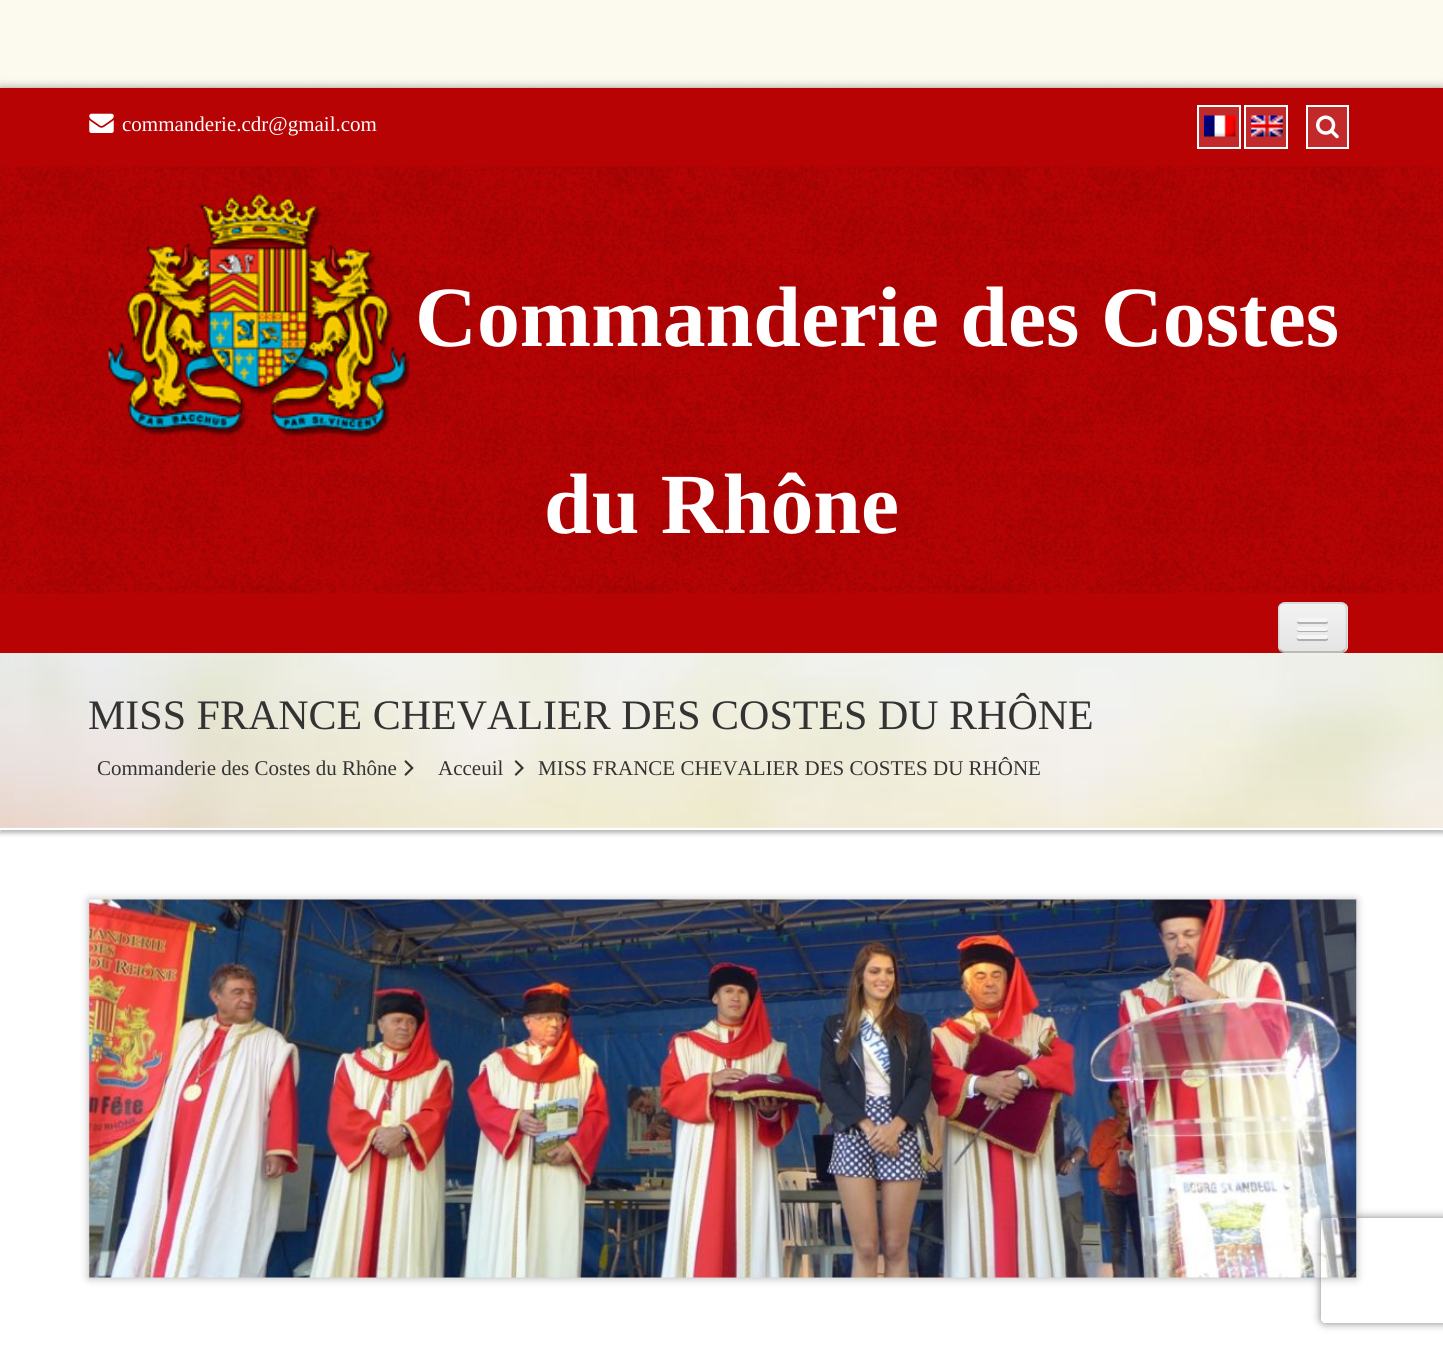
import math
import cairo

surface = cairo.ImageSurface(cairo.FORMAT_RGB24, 1443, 1346)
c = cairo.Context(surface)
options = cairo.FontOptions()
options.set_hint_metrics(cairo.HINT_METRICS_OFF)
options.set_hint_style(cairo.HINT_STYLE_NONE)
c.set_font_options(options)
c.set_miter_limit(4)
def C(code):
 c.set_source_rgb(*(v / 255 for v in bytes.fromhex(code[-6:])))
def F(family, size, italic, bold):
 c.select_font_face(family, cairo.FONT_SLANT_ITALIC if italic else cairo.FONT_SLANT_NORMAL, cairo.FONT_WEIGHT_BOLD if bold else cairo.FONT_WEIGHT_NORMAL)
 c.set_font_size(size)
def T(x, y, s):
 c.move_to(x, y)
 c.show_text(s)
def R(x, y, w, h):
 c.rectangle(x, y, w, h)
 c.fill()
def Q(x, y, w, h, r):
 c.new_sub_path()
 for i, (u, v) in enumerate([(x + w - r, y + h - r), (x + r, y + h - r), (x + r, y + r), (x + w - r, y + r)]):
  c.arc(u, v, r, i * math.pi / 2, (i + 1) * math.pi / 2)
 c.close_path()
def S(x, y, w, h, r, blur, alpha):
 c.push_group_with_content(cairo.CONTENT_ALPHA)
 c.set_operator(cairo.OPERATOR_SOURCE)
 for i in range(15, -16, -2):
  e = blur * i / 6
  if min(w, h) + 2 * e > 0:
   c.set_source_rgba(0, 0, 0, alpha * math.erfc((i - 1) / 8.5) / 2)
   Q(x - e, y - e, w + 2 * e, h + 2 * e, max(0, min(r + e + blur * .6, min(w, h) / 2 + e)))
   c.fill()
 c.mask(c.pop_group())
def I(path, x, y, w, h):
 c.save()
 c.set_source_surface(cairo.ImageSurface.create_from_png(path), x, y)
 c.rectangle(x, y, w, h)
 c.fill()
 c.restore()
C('fcfaee')
c.paint()
C('000000')
S(0,88,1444,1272,0,4.5,.4)
C('ffffff')
R(0,830,1443,516)
I('1.png',9,87,1434,1)
C('000000')
S(0,656,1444,177,0,2.5,.3)
C('b70304')
R(0,88,1443,565)
I('8.png',0,653,1443,175)
c.set_source_rgba(1,1,1,0.07)
c.new_path()
c.move_to(1278,648)
c.curve_to(1278,652,1281,655,1285,655)
c.line_to(1341,655)
c.curve_to(1345,655,1348,652,1348,648)
c.line_to(1348,611)
c.line_to(1347,608)
c.line_to(1348,640)
c.curve_to(1348,654,1345,653,1331,653)
c.line_to(1294,653)
c.curve_to(1289,653,1281,655,1278,648)
c.close_path()
c.fill()
C('ededed')
Q(1278,602,70,51,7)
c.fill()
c.save()
Q(1278,602,70,51,7)
c.clip()
gradient = cairo.LinearGradient(1313,604,1313,651)
gradient.add_color_stop_rgba(0,0.949,0.949,0.949,1)
gradient.add_color_stop_rgba(1,0.898,0.898,0.898,1)
c.set_source(gradient)
R(1278,604,70,47)
c.restore()
c.new_path()
c.move_to(1345,650)
c.curve_to(1343.5,651,1342,652,1340.5,652)
c.line_to(1284.5,652)
c.curve_to(1283,652,1281.5,651,1280,650)
c.set_source_rgba(0,0,0,0.25)
c.set_line_width(1.8)
c.stroke()
c.new_path()
c.move_to(1280,650)
c.curve_to(1279,649,1278.5,647.5,1278.5,646)
c.line_to(1278.5,609)
c.curve_to(1278.5,607.5,1279,606,1280,604.5)
c.curve_to(1281.5,603.5,1283,603,1284.5,603)
c.line_to(1340.5,603)
c.curve_to(1342,603,1343.5,603.5,1345,604.5)
c.curve_to(1346,606,1346.5,607.5,1346.5,609)
c.line_to(1346.5,646)
c.curve_to(1346.5,647.5,1346,649,1345,650)
c.set_source_rgba(0,0,0,0.1)
c.stroke()
C('b2b2b2')
c.new_path()
c.move_to(1297.5,621)
c.line_to(1297,622.5)
c.curve_to(1297.5,625,1302.5,624,1303.5,624)
c.line_to(1321.5,624)
c.curve_to(1322.5,624,1327.5,625,1328,622.5)
c.line_to(1327.5,621)
c.curve_to(1326.5,621.5,1298.5,621.5,1297.5,621)
c.close_path()
c.fill()
C('f5f5f5')
Q(1297,618,31,4,2)
c.fill()
C('b0b0b0')
c.new_path()
c.move_to(1297,629.5)
c.curve_to(1296,633,1302.5,632,1303.5,632)
c.line_to(1321.5,632)
c.curve_to(1322.5,632,1329,633,1328,629.5)
c.line_to(1326.5,630)
c.line_to(1298.5,630)
c.close_path()
c.fill()
C('f5f5f5')
Q(1297,627,31,4,2)
c.fill()
C('aeaeae')
c.new_path()
c.move_to(1297,638)
c.curve_to(1295.5,642,1302.5,641,1303.5,641)
c.line_to(1321.5,641)
c.curve_to(1322.5,641,1329.5,642,1328,638)
c.line_to(1326.5,638.5)
c.line_to(1298.5,638.5)
c.close_path()
c.fill()
C('f5f5f5')
Q(1297,635,31,4,2)
c.fill()
I('2.png',89,113,25,20)
F('Liberation Serif',21,0,0)
C('ffffff')
T(122,131,'commanderie.cdr@gmail.com')
C('c2292a')
c.rectangle(1198,106,42,42)
c.fill_preserve()
C('ffffff')
c.set_line_width(2)
c.stroke()
I('3.png',1204,115,32,22)
C('c2292a')
c.rectangle(1245,106,42,42)
c.fill_preserve()
C('ffffff')
c.stroke()
I('4.png',1251,115,32,22)
C('c2292a')
c.rectangle(1307,106,41,42)
c.fill_preserve()
C('ffffff')
c.stroke()
I('5.png',1316,115,23,24)
I('6.png',0,166,1443,428)
I('7.png',108,193,302,245)
F('Liberation Serif',85.75,0,1)
T(415,346,'Commanderie des Costes')
T(544,533,'du Rhône')
R(0,828,1443,2)
F('Liberation Serif',42,0,0)
C('333333')
T(88,729,'MISS FRANCE CHEVALIER DES COSTES DU RHÔNE')
F('Liberation Serif',21,0,0)
T(97,775,'Commanderie des Costes du Rhône')
I('9.png',404,760,10,16)
T(438,775,'Acceuil')
I('10.png',514,760,10,16)
T(538,775,'MISS FRANCE CHEVALIER DES COSTES DU RHÔNE')
C('000000')
S(89,900,1267,378,0,4.5,.3)
I('11.png',89,899,1268,379)
c.save()
c.set_fill_rule(cairo.FILL_RULE_EVEN_ODD)
c.new_path()
c.move_to(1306,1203)
c.line_to(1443,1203)
c.line_to(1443,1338)
c.line_to(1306,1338)
c.close_path()
c.move_to(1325,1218)
c.line_to(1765,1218)
c.curve_to(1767,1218,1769,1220,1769,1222)
c.line_to(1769,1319)
c.curve_to(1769,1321,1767,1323,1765,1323)
c.line_to(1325,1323)
c.curve_to(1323,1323,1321,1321,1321,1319)
c.line_to(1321,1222)
c.curve_to(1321,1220,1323,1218,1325,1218)
c.close_path()
c.clip()
C('808080')
S(1321,1218,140,105,4,4.5,1)
c.restore()
surface.write_to_png('o.png')
